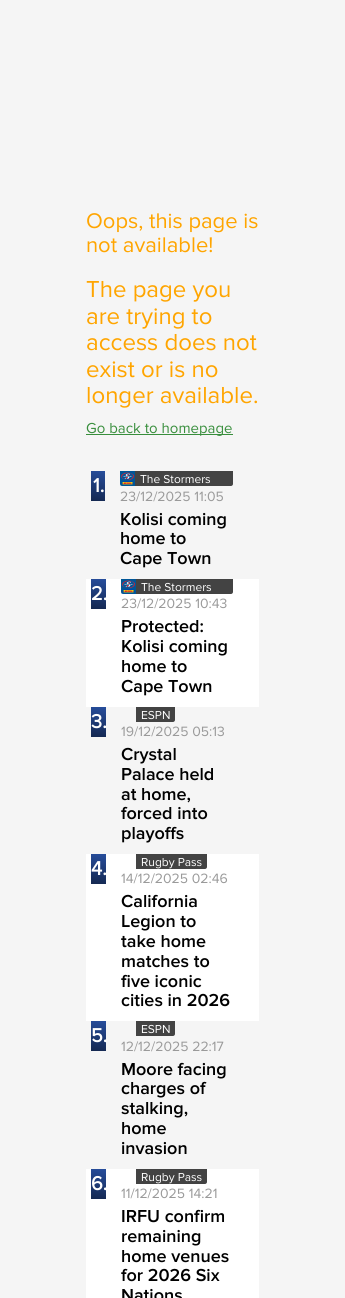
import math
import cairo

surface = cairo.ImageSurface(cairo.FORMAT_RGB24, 345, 1298)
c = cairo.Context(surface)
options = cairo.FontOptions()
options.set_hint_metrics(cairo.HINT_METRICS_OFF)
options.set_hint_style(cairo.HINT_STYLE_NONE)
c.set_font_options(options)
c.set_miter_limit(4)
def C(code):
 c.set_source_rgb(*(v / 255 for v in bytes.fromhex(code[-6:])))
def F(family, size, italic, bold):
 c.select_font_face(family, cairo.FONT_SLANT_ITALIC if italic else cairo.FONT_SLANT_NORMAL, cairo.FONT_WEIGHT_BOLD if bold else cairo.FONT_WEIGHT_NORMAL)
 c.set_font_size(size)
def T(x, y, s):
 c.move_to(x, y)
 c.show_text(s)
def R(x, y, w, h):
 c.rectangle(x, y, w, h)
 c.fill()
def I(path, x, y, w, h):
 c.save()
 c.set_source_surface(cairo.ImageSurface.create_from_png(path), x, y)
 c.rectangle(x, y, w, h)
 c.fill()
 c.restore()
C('f5f5f5')
c.paint()
F('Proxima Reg',22,0,0)
C('ffa500')
T(86,228,'Oops, this page is')
T(86,252,'not available!')
F('Proxima Reg',24,0,0)
T(86,297,'The page you')
T(86,324,'are trying to')
T(86,350,'access does not')
T(86,377,'exist or is no')
T(86,403,'longer available.')
C('388e3c')
R(86,434,147,1)
F('Proxima Reg',15,0,0)
T(86,433,'Go back to homepage')
gradient = cairo.LinearGradient(95,502,101,470)
gradient.add_color_stop_rgba(0,0.078,0.153,0.31,1)
gradient.add_color_stop_rgba(1,0.153,0.306,0.616,1)
c.set_source(gradient)
R(91,471,14,30)
F('Proxima Reg',20,0,1)
C('ffffff')
T(93,492,'1.')
I('1.png',120,471,15,15)
C('434343')
c.new_path()
c.move_to(135,471)
c.line_to(233,471)
c.line_to(233,484)
c.curve_to(233,485,232,486,231,486)
c.line_to(135,486)
c.close_path()
c.fill()
F('Proxima Reg',12,0,0)
C('ffffff')
T(140,483,'The Stormers')
F('Proxima Reg',14,0,0)
C('9a9a9a')
T(120,501,'23/12/2025 11:05')
F('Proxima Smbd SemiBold',18,0,0)
C('000000')
T(120,525,'Kolisi coming')
T(120,544,'home to')
T(120,564,'Cape Town')
C('ffffff')
R(86,579,173,128)
gradient = cairo.LinearGradient(96,610,101,578)
gradient.add_color_stop_rgba(0,0.078,0.153,0.31,1)
gradient.add_color_stop_rgba(1,0.153,0.306,0.616,1)
c.set_source(gradient)
R(91,579,15,30)
F('Proxima Reg',20,0,1)
C('ffffff')
T(91,600,'2.')
I('2.png',121,579,15,15)
C('434343')
c.new_path()
c.move_to(136,579)
c.line_to(233,579)
c.line_to(233,592)
c.curve_to(233,593,232,594,231,594)
c.line_to(136,594)
c.close_path()
c.fill()
F('Proxima Reg',12,0,0)
C('ffffff')
T(141,591,'The Stormers')
F('Proxima Reg',14,0,0)
C('9a9a9a')
T(121,608,'23/12/2025 10:43')
F('Proxima Smbd SemiBold',18,0,0)
C('000000')
T(121,632,'Protected:')
T(121,652,'Kolisi coming')
T(121,672,'home to')
T(121,692,'Cape Town')
gradient = cairo.LinearGradient(96,738,101,706)
gradient.add_color_stop_rgba(0,0.078,0.153,0.31,1)
gradient.add_color_stop_rgba(1,0.153,0.306,0.616,1)
c.set_source(gradient)
R(91,707,15,30)
F('Proxima Reg',20,0,1)
C('ffffff')
T(91,728,'3.')
C('434343')
c.new_path()
c.move_to(136,707)
c.line_to(175,707)
c.line_to(175,720)
c.curve_to(175,721,174,722,173,722)
c.line_to(136,722)
c.close_path()
c.fill()
F('Proxima Reg',12,0,0)
C('ffffff')
T(141,719,'ESPN')
F('Proxima Reg',14,0,0)
C('9a9a9a')
T(121,736,'19/12/2025 05:13')
F('Proxima Smbd SemiBold',18,0,0)
C('000000')
T(121,760,'Crystal')
T(121,780,'Palace held')
T(121,800,'at home,')
T(121,819,'forced into')
T(121,839,'playoffs')
C('ffffff')
R(86,854,173,167)
gradient = cairo.LinearGradient(96,885,101,853)
gradient.add_color_stop_rgba(0,0.078,0.153,0.31,1)
gradient.add_color_stop_rgba(1,0.153,0.306,0.616,1)
c.set_source(gradient)
R(91,854,15,30)
F('Proxima Reg',20,0,1)
C('ffffff')
T(91,875,'4.')
C('434343')
c.new_path()
c.move_to(136,854)
c.line_to(207,854)
c.line_to(207,867)
c.curve_to(207,868,206,869,205,869)
c.line_to(136,869)
c.close_path()
c.fill()
F('Proxima Reg',12,0,0)
C('ffffff')
T(141,866,'Rugby Pass')
F('Proxima Reg',14,0,0)
C('9a9a9a')
T(121,883,'14/12/2025 02:46')
F('Proxima Smbd SemiBold',18,0,0)
C('000000')
T(121,907,'California')
T(121,927,'Legion to')
T(121,947,'take home')
T(121,967,'matches to')
T(121,987,'five iconic')
T(121,1006,'cities in 2026')
gradient = cairo.LinearGradient(96,1052,101,1020)
gradient.add_color_stop_rgba(0,0.078,0.153,0.31,1)
gradient.add_color_stop_rgba(1,0.153,0.306,0.616,1)
c.set_source(gradient)
R(91,1021,15,30)
F('Proxima Reg',20,0,1)
C('ffffff')
T(91,1042,'5.')
C('434343')
c.new_path()
c.move_to(136,1021)
c.line_to(175,1021)
c.line_to(175,1034)
c.curve_to(175,1035,174,1036,173,1036)
c.line_to(136,1036)
c.close_path()
c.fill()
F('Proxima Reg',12,0,0)
C('ffffff')
T(141,1033,'ESPN')
F('Proxima Reg',14,0,0)
C('9a9a9a')
T(121,1051,'12/12/2025 22:17')
F('Proxima Smbd SemiBold',18,0,0)
C('000000')
T(121,1075,'Moore facing')
T(121,1094,'charges of')
T(121,1114,'stalking,')
T(121,1134,'home')
T(121,1154,'invasion')
C('ffffff')
R(86,1169,173,129)
gradient = cairo.LinearGradient(96,1200,101,1168)
gradient.add_color_stop_rgba(0,0.078,0.153,0.31,1)
gradient.add_color_stop_rgba(1,0.153,0.306,0.616,1)
c.set_source(gradient)
R(91,1169,15,30)
F('Proxima Reg',20,0,1)
C('ffffff')
T(91,1190,'6.')
C('434343')
c.new_path()
c.move_to(136,1169)
c.line_to(207,1169)
c.line_to(207,1182)
c.curve_to(207,1183,206,1184,205,1184)
c.line_to(136,1184)
c.close_path()
c.fill()
F('Proxima Reg',12,0,0)
C('ffffff')
T(141,1181,'Rugby Pass')
F('Proxima Reg',14,0,0)
C('9a9a9a')
T(121,1198,'11/12/2025 14:21')
F('Proxima Smbd SemiBold',18,0,0)
C('000000')
T(121,1222,'IRFU confirm')
T(121,1242,'remaining')
T(121,1262,'home venues')
T(121,1281,'for 2026 Six')
T(121,1301,'Nations')
surface.write_to_png('o.png')
